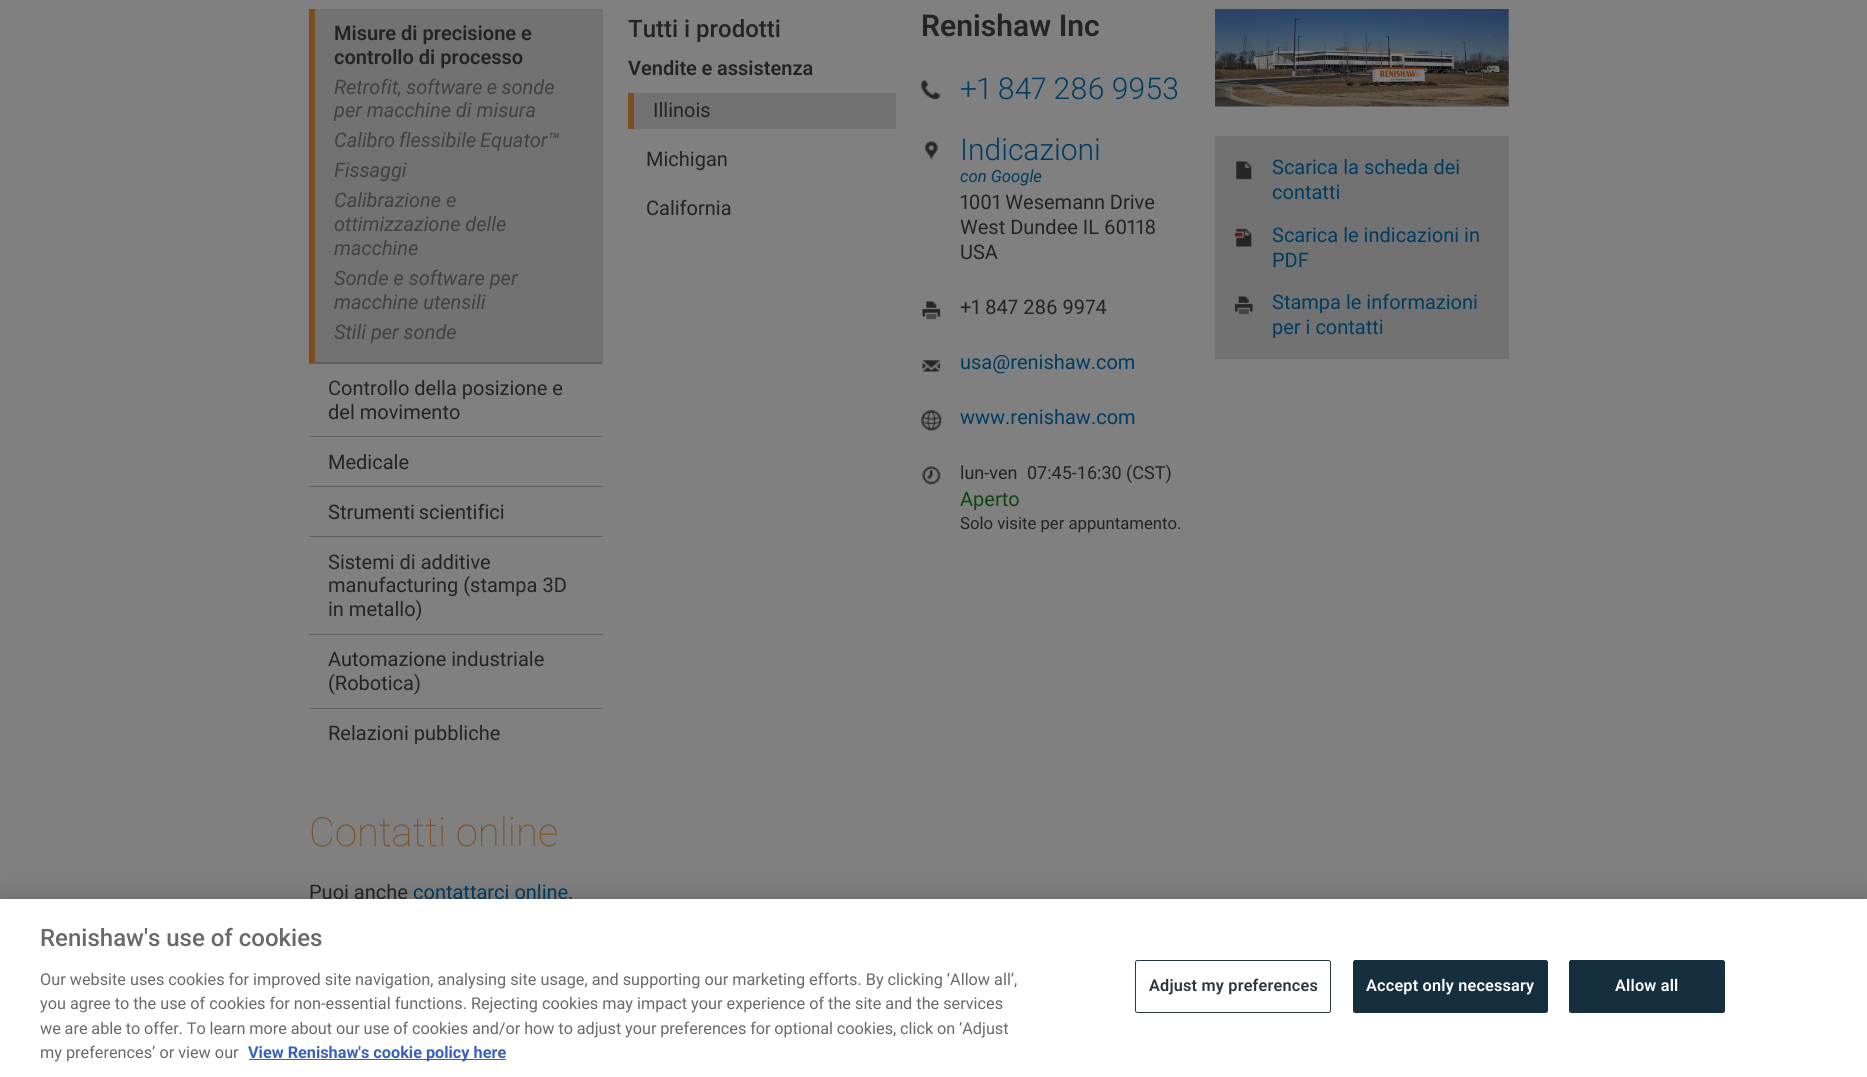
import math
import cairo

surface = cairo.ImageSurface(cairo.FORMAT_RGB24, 1867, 1077)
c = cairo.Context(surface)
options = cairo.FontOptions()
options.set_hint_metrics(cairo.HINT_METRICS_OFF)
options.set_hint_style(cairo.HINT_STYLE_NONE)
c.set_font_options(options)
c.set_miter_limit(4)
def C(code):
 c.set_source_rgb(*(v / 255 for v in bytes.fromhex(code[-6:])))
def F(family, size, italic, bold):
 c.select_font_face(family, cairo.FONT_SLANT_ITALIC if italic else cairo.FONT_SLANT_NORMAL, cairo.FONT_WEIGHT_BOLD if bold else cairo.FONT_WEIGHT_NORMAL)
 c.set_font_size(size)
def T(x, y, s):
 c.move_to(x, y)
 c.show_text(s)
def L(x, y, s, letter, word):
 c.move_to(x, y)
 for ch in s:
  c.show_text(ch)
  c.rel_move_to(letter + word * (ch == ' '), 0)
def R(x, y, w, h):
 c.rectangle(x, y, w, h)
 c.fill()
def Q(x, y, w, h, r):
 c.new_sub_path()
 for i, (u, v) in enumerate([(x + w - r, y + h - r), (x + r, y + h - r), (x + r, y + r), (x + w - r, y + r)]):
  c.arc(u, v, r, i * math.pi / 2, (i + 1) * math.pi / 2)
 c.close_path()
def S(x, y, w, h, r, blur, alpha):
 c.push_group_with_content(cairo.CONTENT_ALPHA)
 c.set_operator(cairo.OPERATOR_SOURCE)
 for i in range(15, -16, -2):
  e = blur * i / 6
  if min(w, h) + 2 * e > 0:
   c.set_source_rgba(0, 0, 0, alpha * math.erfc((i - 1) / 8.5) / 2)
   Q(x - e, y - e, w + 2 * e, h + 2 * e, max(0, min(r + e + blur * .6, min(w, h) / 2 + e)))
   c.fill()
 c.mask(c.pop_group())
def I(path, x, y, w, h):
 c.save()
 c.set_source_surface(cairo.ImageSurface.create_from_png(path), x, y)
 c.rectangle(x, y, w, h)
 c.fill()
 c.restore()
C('808080')
c.paint()
C('727272')
R(309,9,294,355)
C('5e5e5e')
c.new_path()
c.move_to(602,364)
c.line_to(309,364)
c.line_to(315,362)
c.line_to(602,362)
c.close_path()
c.fill()
C('804d1a')
c.new_path()
c.move_to(309,364)
c.line_to(309,9)
c.line_to(315,9)
c.line_to(315,362)
c.close_path()
c.fill()
F('Roboto SemiBold',20,0,0)
C('262422')
T(334,40,'Misure di precisione e')
T(334,64,'controllo di processo')
F('Roboto',20,1,0)
C('424242')
L(334,94,'Retrofit, software e sonde',0,-.5)
T(334,117,'per macchine di misura')
L(334,147,'Calibro flessibile Equator™',0,-1)
T(334,177,'Fissaggi')
T(334,207,'Calibrazione e')
T(334,231,'ottimizzazione delle')
T(334,255,'macchine')
T(334,285,'Sonde e software per')
T(334,309,'macchine utensili')
T(334,339,'Stili per sonde')
C('5e5e5e')
R(309,436,294,1)
F('Roboto',20,0,0)
C('262422')
T(328,395,'Controllo della posizione e')
T(328,419,'del movimento')
C('5e5e5e')
R(309,486,294,1)
C('262422')
T(328,469,'Medicale')
C('5e5e5e')
R(309,536,294,1)
C('262422')
L(328,519,'Strumenti scientifici',0,-1)
C('5e5e5e')
R(309,634,294,1)
C('262422')
T(328,569,'Sistemi di additive')
T(328,592,'manufacturing (stampa 3D')
T(328,616,'in metallo)')
C('5e5e5e')
R(309,708,294,1)
C('262422')
T(328,666,'Automazione industriale')
T(328,690,'(Robotica)')
T(328,740,'Relazioni pubbliche')
F('Roboto Medium',24,0,0)
T(628,37,'Tutti i prodotti')
F('Roboto SemiBold',20,0,0)
L(628,75,'Vendite e assistenza',0,-.25)
C('727272')
R(634,93,262,36)
C('804d1a')
R(628,93,6,36)
F('Roboto',20,0,0)
C('262422')
T(653,117,'Illinois')
T(646,166,'Michigan')
T(646,215,'California')
F('Roboto SemiBold',30,0,0)
T(921,36,'Renishaw Inc')
I('1.png',921,80,20,19)
F('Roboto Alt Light',30,0,0)
C('003d61')
T(960,99,'+1 847 286 9953')
I('2.png',924,141,14,20)
F('Roboto Light',30,0,0)
T(960,160,'Indicazioni')
F('Roboto',16.7,1,0)
T(960,182,'con Google')
F('Roboto Alt',20,0,0)
C('262422')
L(960,209,'1001 Wesemann Drive',0,-.25)
T(960,234,'West Dundee IL 60118')
F('Roboto',20,0,0)
T(960,259,'USA')
I('3.png',922,301,19,19)
F('Roboto Alt',20,0,0)
T(960,314,'+1 847 286 9974')
I('4.png',922,360,19,12)
F('Roboto',20,0,0)
C('003d61')
T(960,369,'usa@renishaw.com')
I('5.png',921,410,21,21)
T(960,424,'www.renishaw.com')
I('6.png',922,466,19,19)
F('Roboto',18,0,0)
C('262422')
T(960,479,'lun-ven')
T(1027,479,'07:45-16:30 (CST)')
F('Roboto',20,0,0)
C('114611')
T(960,506,'Aperto')
F('Roboto',16.7,0,0)
C('262422')
T(960,529,'Solo visite per appuntamento.')
I('7.png',1215,9,294,98)
C('727272')
R(1215,136,294,223)
I('8.png',1236,161,16,19)
F('Roboto',20,0,0)
C('003d61')
T(1272,174,'Scarica la scheda dei')
T(1272,199,'contatti')
I('9.png',1234,228,18,19)
T(1272,242,'Scarica le indicazioni in')
T(1272,267,'PDF')
I('10.png',1234,296,19,19)
T(1272,309,'Stampa le informazioni')
T(1272,334,'per i contatti')
F('Roboto Thin',40,0,0)
C('804d1a')
T(309,846,'Contatti online')
F('Roboto',20,0,0)
C('262422')
T(309,899,'Puoi anche')
C('003d61')
T(413,899,'contattarci online')
C('262422')
T(568,899,'.')
C('000000')
S(0,899,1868,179,0,11,.2)
C('ffffff')
R(0,899,1867,178)
F('Roboto Medium',24,0,0)
C('696969')
T(40,946,'Renishaw\'s use of cookies')
F('Roboto',16.25,0,0)
T(40,985,'Our website uses cookies for improved site navigation, analysing site usage, and supporting our marketing efforts. By clicking ‘Allow all’,')
T(40,1009,'you agree to the use of cookies for non-essential functions. Rejecting cookies may impact your experience of the site and the services')
L(40,1034,'we are able to offer. To learn more about our use of cookies and/or how to adjust your preferences for optional cookies, click on ‘Adjust',0,-.25)
T(40,1058,'my preferences’ or view our')
C('3860be')
R(249,1059,257,1)
F('Roboto',16.25,0,1)
T(248,1058,'View Renishaw\'s cookie policy here')
Q(1135.5,960.5,195,52,2)
C('2c363f')
c.set_line_width(1)
c.stroke()
F('Roboto SemiBold',16.25,0,0)
L(1149,991,'Adjust my preferences',.2,0)
C('152f3f')
Q(1353.5,960.5,194,52,2)
c.fill_preserve()
c.stroke()
C('ffffff')
L(1366,991,'Accept only necessary',.2,0)
C('152f3f')
Q(1569.5,960.5,155,52,2)
c.fill_preserve()
c.stroke()
C('ffffff')
L(1615,991,'Allow all',.2,0)
surface.write_to_png('o.png')
